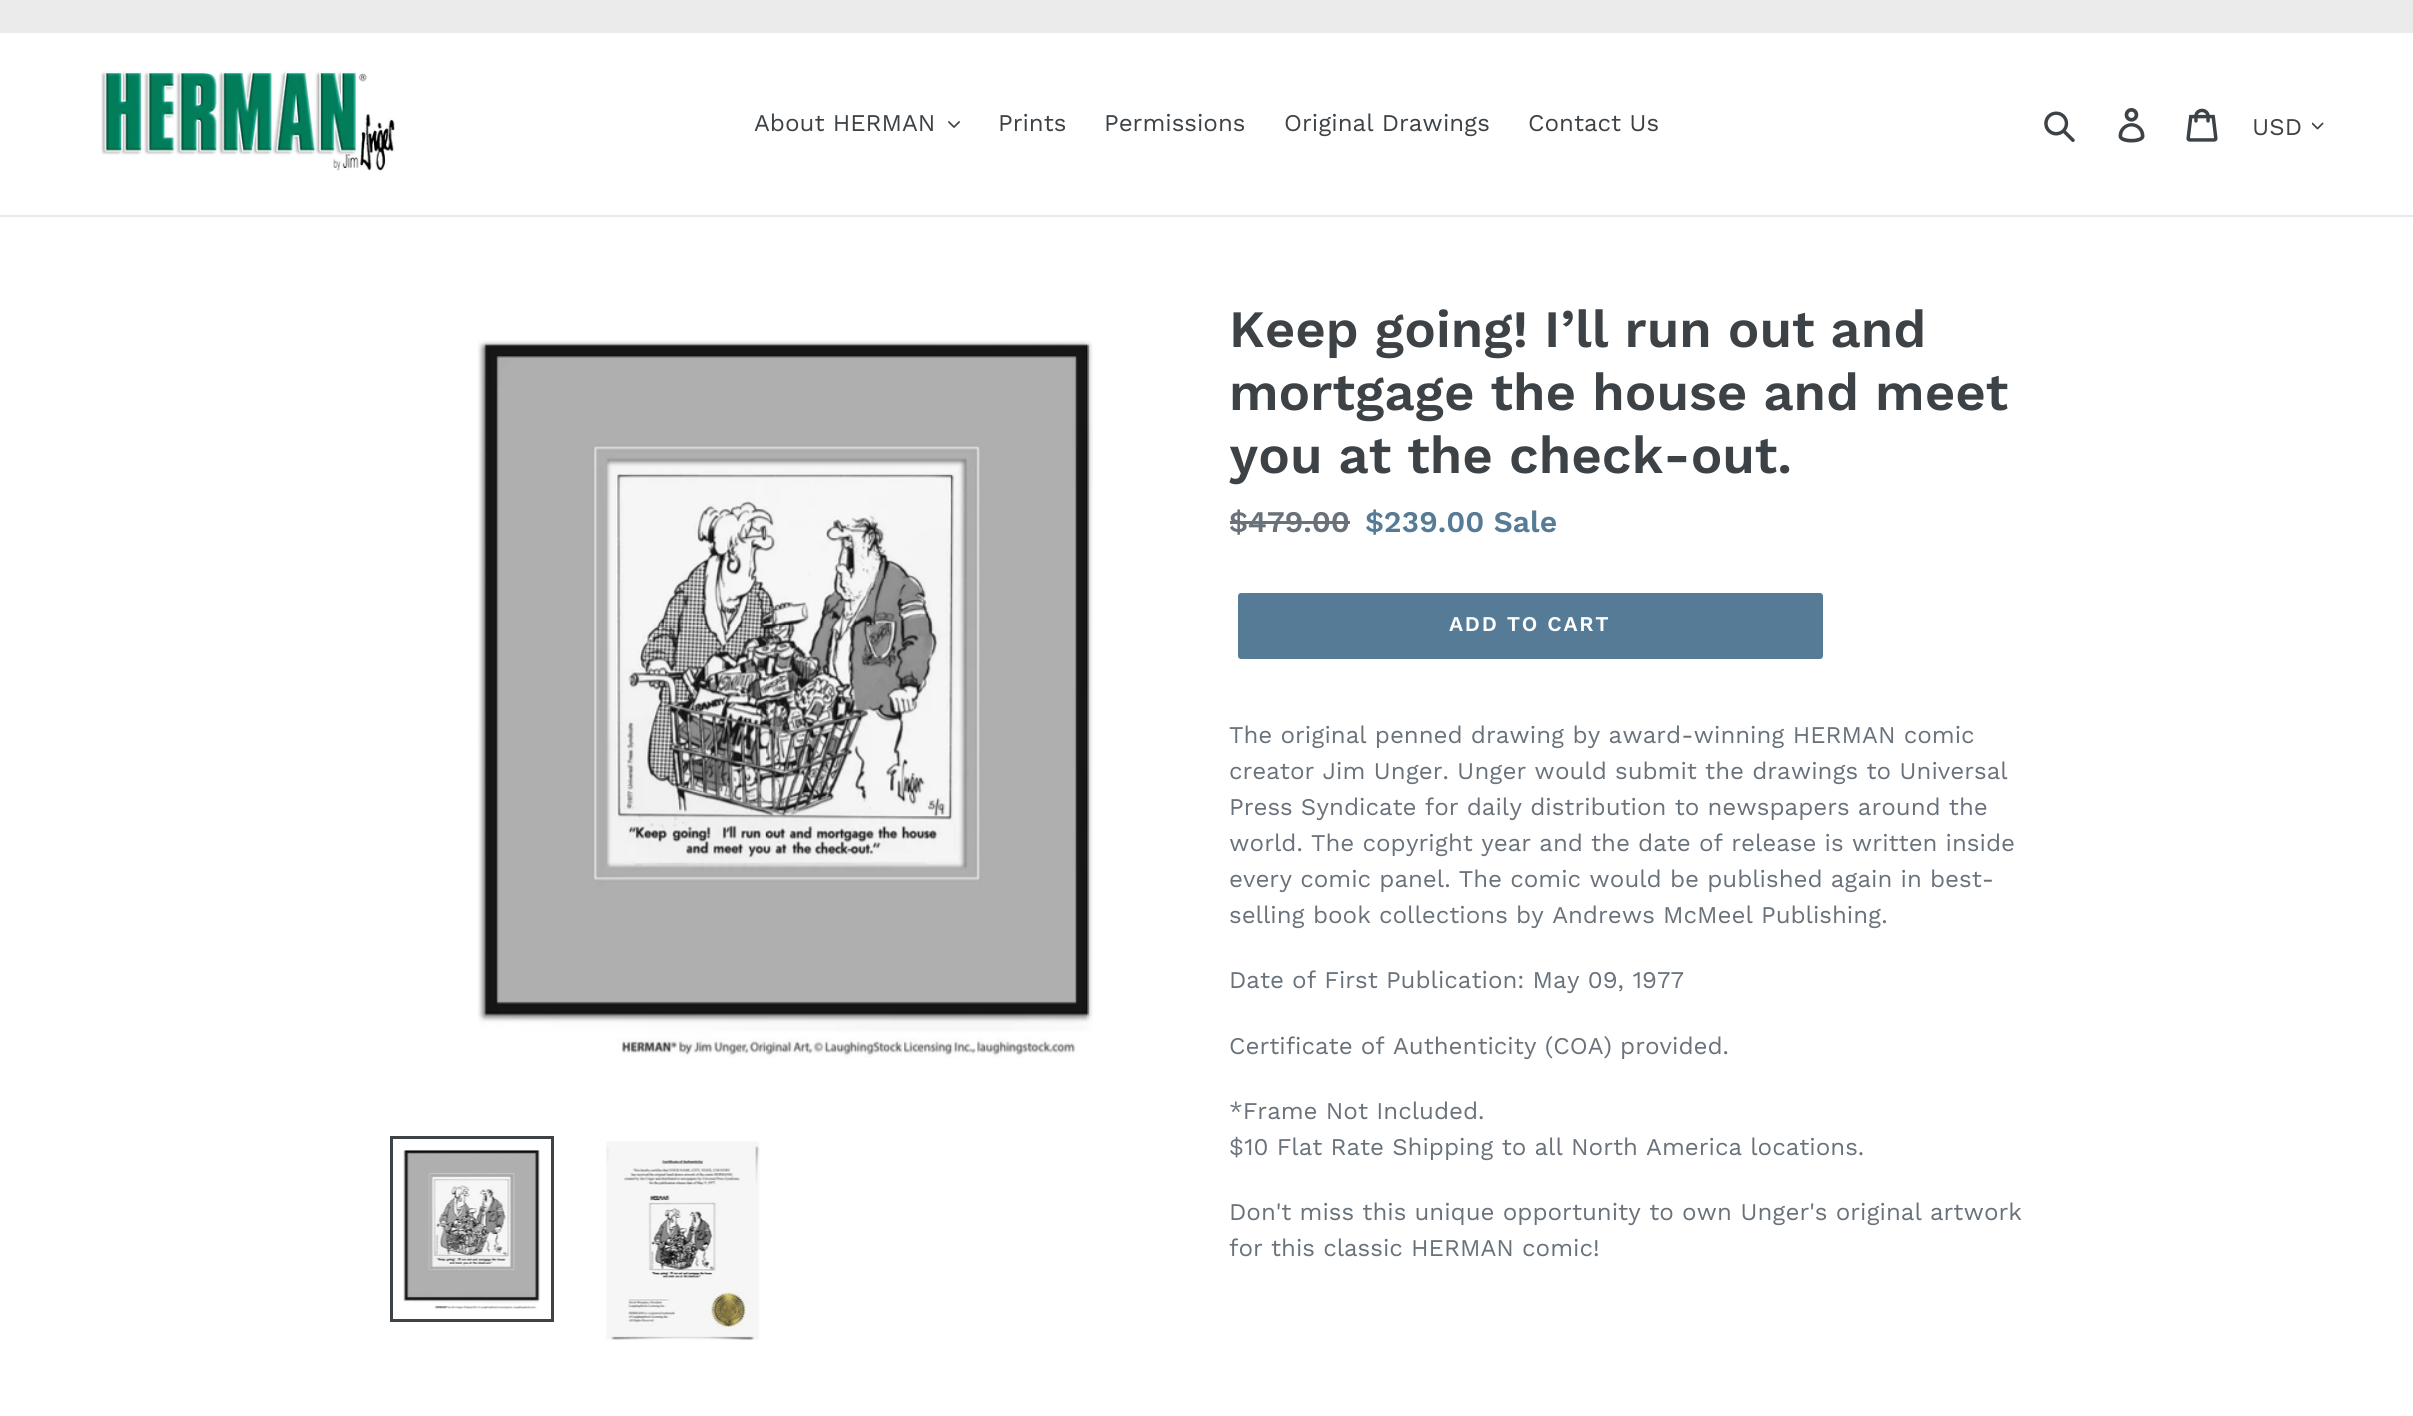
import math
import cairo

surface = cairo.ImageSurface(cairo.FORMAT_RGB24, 2413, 1416)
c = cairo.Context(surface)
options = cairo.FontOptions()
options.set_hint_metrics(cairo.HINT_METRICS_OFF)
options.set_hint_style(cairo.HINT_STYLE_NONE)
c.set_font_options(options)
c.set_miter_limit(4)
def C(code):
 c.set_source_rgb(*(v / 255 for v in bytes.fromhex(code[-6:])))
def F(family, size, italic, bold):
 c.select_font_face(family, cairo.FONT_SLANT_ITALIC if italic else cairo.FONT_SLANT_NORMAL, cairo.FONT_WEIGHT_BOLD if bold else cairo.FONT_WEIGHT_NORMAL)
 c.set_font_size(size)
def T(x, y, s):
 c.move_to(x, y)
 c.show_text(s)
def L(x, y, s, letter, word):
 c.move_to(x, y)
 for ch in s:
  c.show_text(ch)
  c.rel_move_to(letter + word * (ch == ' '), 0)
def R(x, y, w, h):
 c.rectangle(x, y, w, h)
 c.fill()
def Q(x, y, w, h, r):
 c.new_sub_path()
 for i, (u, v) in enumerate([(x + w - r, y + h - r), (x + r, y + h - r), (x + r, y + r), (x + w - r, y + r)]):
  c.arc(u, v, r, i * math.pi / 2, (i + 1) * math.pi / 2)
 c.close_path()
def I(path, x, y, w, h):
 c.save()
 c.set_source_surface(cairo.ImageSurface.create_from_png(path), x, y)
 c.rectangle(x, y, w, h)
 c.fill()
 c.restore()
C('ffffff')
c.paint()
C('ebebeb')
R(0,0,2413,33)
C('e8e9eb')
R(0,215,2413,2)
I('1.png',101,70,294,101)
F('Work Sans',24,0,0)
C('3d4246')
T(754,131,'About HERMAN')
I('2.png',948,121,12,7)
T(998,131,'Prints')
T(1104,131,'Permissions')
T(1284,131,'Original Drawings')
T(1528,131,'Contact Us')
I('3.png',2044,111,31,31)
I('4.png',2118,108,27,35)
I('5.png',2186,108,32,34)
T(2252,135,'USD')
I('6.png',2312,122,12,8)
I('7.png',477,340,616,718)
c.rectangle(391.5,1137.5,161,183)
c.set_line_width(3)
c.stroke()
I('8.png',403,1150,137,159)
I('9.png',606,1141,154,199)
F('Work Sans SemiBold',52.5,0,0)
T(1229,347,'Keep going! I’ll run out and')
T(1229,410,'mortgage the house and meet')
T(1229,473,'you at the check-out.')
F('Work Sans SemiBold',30,0,0)
C('69727b')
T(1229,532,'$479.00')
R(1230,521,120,3)
C('557b97')
T(1365,532,'$239.00 Sale')
Q(1238,593,585,66,3)
c.fill()
F('Work Sans SemiBold',21,0,0)
C('ffffff')
L(1449,631,'ADD TO CART',1.75,0)
F('Work Sans',24,0,0)
C('69727b')
T(1229,743,'The original penned drawing by award-winning HERMAN comic')
T(1229,779,'creator Jim Unger. Unger would submit the drawings to Universal')
T(1229,815,'Press Syndicate for daily distribution to newspapers around the')
T(1229,851,'world. The copyright year and the date of release is written inside')
T(1229,887,'every comic panel. The comic would be published again in best-')
T(1229,923,'selling book collections by Andrews McMeel Publishing.')
T(1229,988,'Date of First Publication: May 09, 1977')
T(1229,1054,'Certificate of Authenticity (COA) provided.')
T(1229,1119,'*Frame Not Included.')
T(1229,1155,'$10 Flat Rate Shipping to all North America locations.')
T(1229,1220,'Don\'t miss this unique opportunity to own Unger\'s original artwork')
T(1229,1256,'for this classic HERMAN comic!')
surface.write_to_png('o.png')
